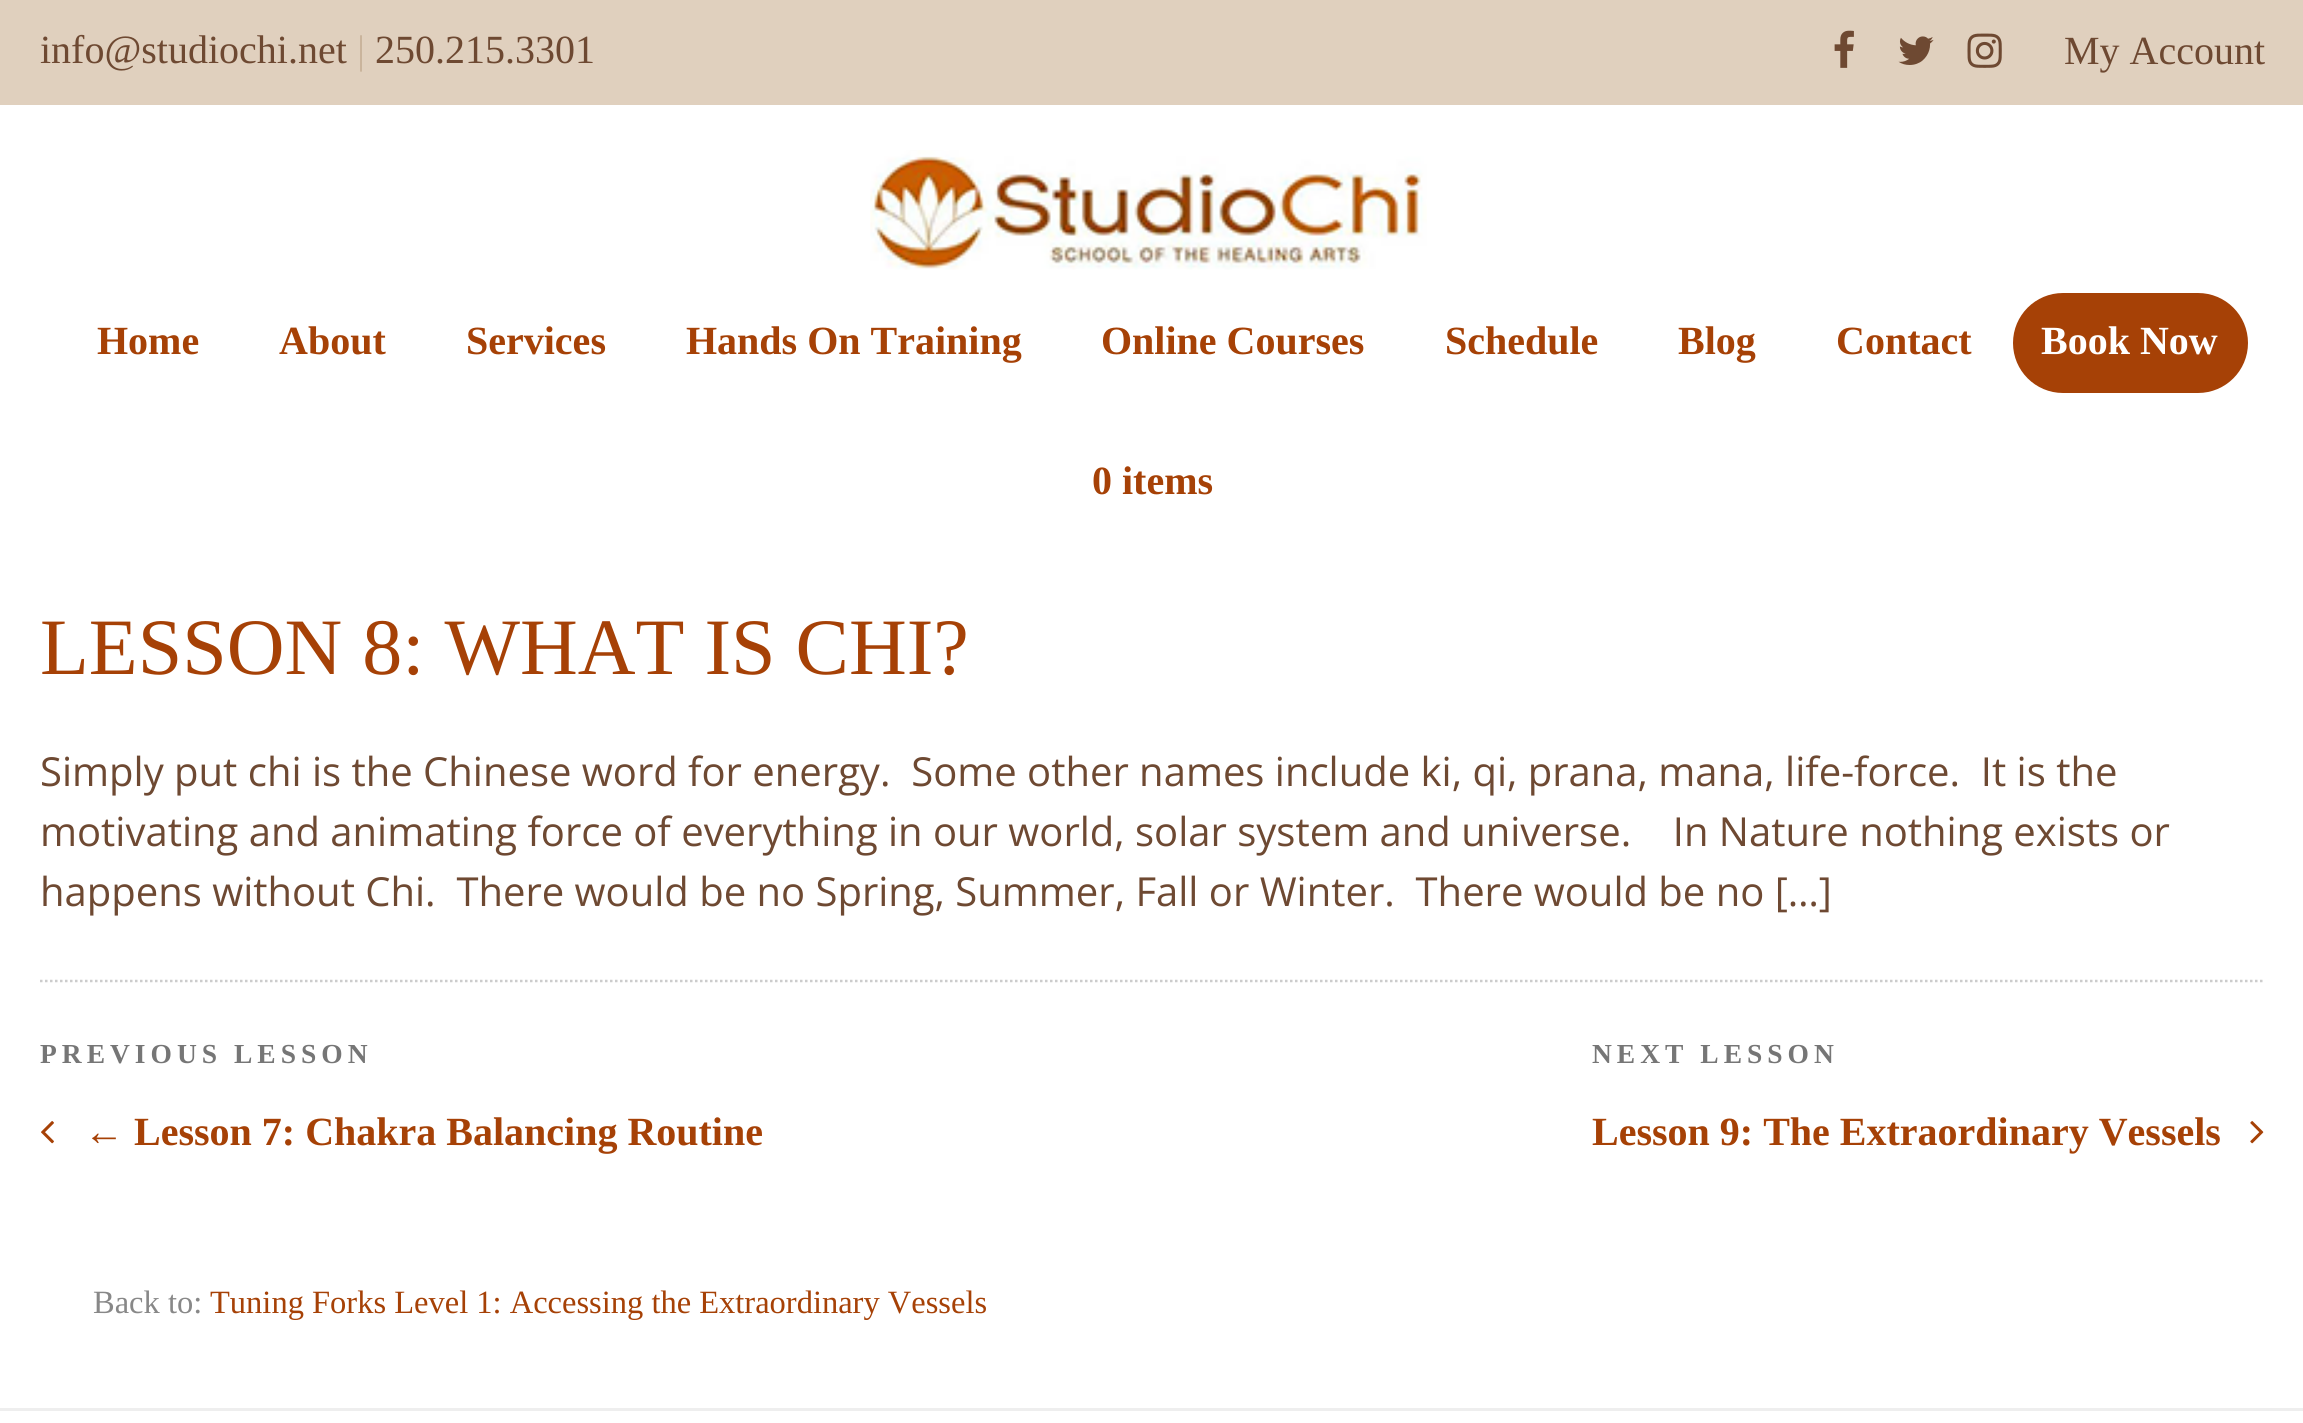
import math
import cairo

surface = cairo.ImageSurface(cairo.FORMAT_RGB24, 2303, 1423)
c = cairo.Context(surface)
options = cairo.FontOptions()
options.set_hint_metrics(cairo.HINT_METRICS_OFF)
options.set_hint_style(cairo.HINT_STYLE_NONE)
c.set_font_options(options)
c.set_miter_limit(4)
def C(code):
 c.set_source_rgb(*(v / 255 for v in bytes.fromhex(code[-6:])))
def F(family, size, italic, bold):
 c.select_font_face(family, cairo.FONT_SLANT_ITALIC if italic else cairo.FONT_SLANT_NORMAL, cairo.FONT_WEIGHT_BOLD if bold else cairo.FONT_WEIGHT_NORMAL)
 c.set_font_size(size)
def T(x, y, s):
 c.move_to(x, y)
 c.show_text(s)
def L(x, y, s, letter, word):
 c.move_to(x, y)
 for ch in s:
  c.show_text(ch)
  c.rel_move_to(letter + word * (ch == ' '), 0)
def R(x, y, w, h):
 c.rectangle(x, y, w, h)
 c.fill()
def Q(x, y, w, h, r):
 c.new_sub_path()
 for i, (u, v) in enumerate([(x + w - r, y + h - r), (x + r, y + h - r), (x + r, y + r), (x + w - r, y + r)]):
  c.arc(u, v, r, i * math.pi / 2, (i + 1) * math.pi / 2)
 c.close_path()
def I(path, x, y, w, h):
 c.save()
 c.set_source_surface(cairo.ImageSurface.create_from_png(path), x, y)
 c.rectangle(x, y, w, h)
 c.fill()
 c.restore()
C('ffffff')
c.paint()
C('e0d0be')
R(0,0,2303,105)
F('Liberation Serif',40,0,0)
C('6e4932')
T(40,63,'info@studiochi.net')
C('c9b49c')
T(357,63,'|')
C('6e4932')
T(375,63,'250.215.3301')
I('1.png',1834,30,20,38)
I('2.png',1898,36,36,29)
I('3.png',1967,33,35,35)
T(2064,64,'My Account')
I('4.png',870,150,557,120)
F('Liberation Serif',40,0,1)
C('a64106')
T(97,354,'Home')
T(279,354,'About')
T(466,354,'Services')
T(686,354,'Hands On Training')
T(1101,354,'Online Courses')
T(1445,354,'Schedule')
T(1678,354,'Blog')
T(1836,354,'Contact')
Q(2013,293,235,100,50)
c.fill()
C('ffffff')
T(2041,354,'Book Now')
C('a64106')
T(1092,494,'0 items')
F('Liberation Serif',80,0,0)
T(40,674,'LESSON 8: WHAT IS CHI?')
F('Open Sans',40,0,0)
C('6e4932')
T(40,786,'Simply put chi is the Chinese word for energy.  Some other names include ki, qi, prana, mana, life-force.  It is the')
T(40,846,'motivating and animating force of everything in our world, solar system and universe.    In Nature nothing exists or')
T(40,906,'happens without Chi.  There would be no Spring, Summer, Fall or Winter.  There would be no […]')
c.new_path()
c.move_to(40,981)
c.line_to(2265,981)
C('cccccc')
c.set_line_width(2.5)
c.set_dash([2.5,2.5])
c.stroke()
F('Liberation Serif',27.5,0,1)
C('767676')
L(40,1063,'PREVIOUS LESSON',5,0)
I('5.png',41,1121,13,23)
F('Liberation Serif',40,0,1)
C('a64106')
T(84,1145,'← Lesson 7: Chakra Balancing Routine')
F('Liberation Serif',27.5,0,1)
C('767676')
L(1592,1063,'NEXT LESSON',5,0)
F('Liberation Serif',40,0,1)
C('a64106')
T(1592,1145,'Lesson 9: The Extraordinary Vessels')
I('6.png',2250,1121,14,23)
F('Liberation Serif',32.5,0,0)
C('888888')
T(93,1313,'Back to:')
C('a64106')
T(210,1313,'Tuning Forks Level 1: Accessing the Extraordinary Vessels')
C('eeeeee')
R(0,1408,2303,3)
surface.write_to_png('o.png')
